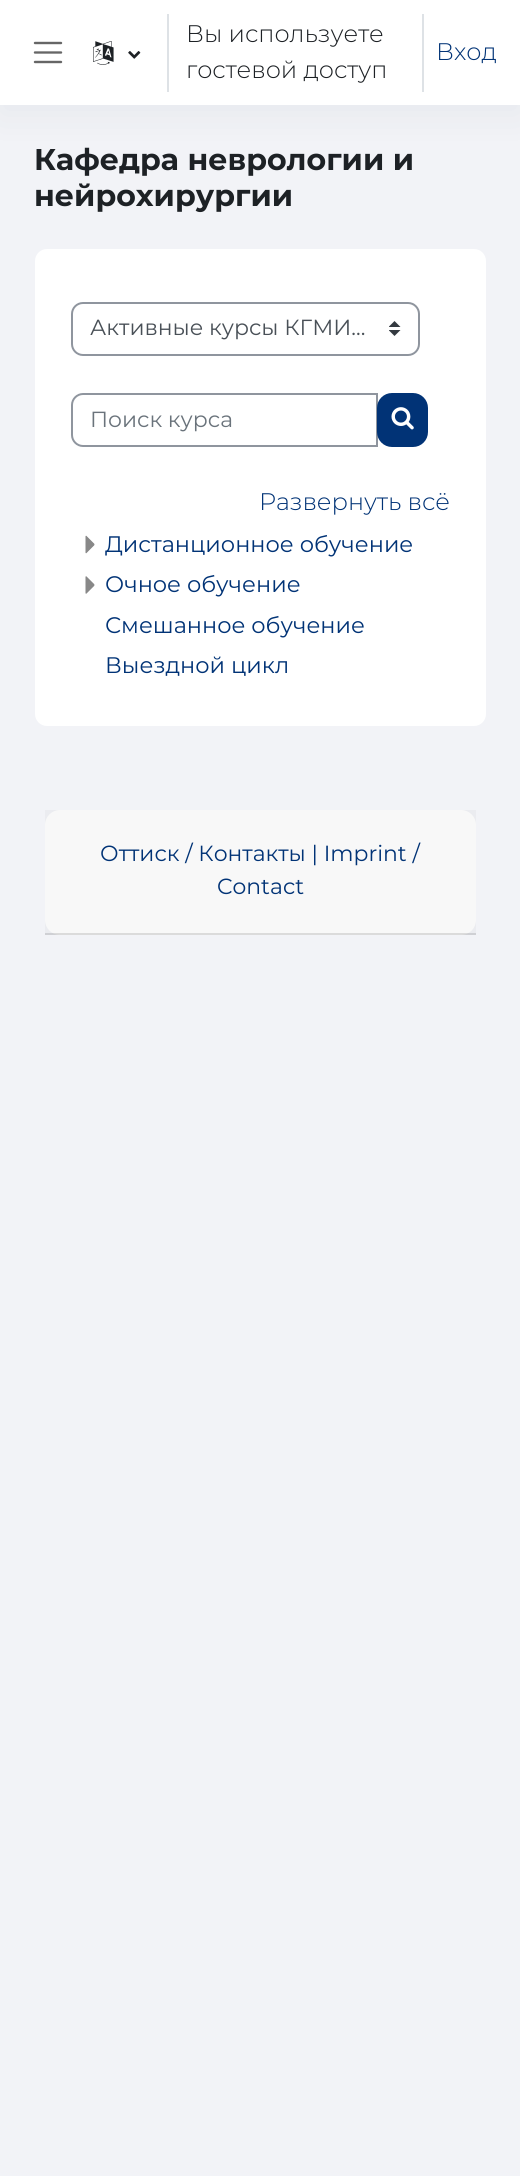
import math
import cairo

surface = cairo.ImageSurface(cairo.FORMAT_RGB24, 520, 2176)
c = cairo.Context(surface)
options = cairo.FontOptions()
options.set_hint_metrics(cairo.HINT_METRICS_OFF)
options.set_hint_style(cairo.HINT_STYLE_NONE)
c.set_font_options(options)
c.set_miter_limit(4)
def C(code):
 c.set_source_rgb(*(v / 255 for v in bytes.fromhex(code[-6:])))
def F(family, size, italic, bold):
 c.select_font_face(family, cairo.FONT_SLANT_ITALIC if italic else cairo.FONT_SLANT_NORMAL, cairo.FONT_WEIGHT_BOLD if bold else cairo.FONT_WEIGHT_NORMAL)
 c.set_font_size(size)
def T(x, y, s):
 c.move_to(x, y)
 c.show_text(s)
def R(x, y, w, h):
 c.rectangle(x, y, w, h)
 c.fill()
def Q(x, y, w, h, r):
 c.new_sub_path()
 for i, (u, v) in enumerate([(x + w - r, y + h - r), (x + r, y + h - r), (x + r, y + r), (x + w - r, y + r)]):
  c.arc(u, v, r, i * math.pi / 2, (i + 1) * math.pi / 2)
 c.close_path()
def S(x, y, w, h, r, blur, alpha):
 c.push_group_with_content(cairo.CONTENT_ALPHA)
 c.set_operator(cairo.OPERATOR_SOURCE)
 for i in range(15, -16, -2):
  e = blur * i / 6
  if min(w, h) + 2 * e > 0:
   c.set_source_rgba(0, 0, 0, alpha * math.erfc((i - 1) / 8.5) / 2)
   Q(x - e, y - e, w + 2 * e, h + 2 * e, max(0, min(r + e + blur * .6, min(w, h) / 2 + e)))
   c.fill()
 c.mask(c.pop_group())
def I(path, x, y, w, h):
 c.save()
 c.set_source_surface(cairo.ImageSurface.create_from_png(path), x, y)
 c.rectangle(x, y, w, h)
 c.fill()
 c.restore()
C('f2f3f7')
c.paint()
C('8c98a4')
S(0,9,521,105,0,18,.13)
C('ffffff')
R(0,0,520,105)
c.new_path()
c.move_to(35,43)
c.line_to(61,43)
c.move_to(35,52.5)
c.line_to(61,52.5)
c.move_to(35,62)
c.line_to(61,62)
C('666666')
c.set_line_width(2.4)
c.set_line_cap(cairo.LINE_CAP_ROUND)
c.stroke()
I('1.png',93,41,21,24)
I('2.png',128,51,13,8)
C('dee2e6')
R(167,14,2,78)
F('Montserrat Light',24,0,0)
C('1d2125')
T(186,42,'Вы используете')
C('dee2e6')
R(422,14,2,78)
C('013376')
T(436,60,'Вход')
C('1d2125')
T(186,78,'гостевой доступ')
F('Montserrat',30,0,1)
T(34,170,'Кафедра неврологии и')
T(34,206,'нейрохирургии')
C('ffffff')
Q(35,249,451,477,12)
c.fill()
I('3.png',389,321,12,15)
Q(72,303,347,52,11)
C('8f959e')
c.set_line_width(2)
c.set_line_cap(cairo.LINE_CAP_BUTT)
c.stroke()
F('Montserrat',21.9,0,0)
C('495057')
T(90,335,'Активные курсы КГМИ…')
c.new_path()
c.move_to(83,394)
c.line_to(377,394)
c.line_to(377,446)
c.line_to(83,446)
c.curve_to(77,446,72,441,72,435)
c.line_to(72,405)
c.curve_to(72,399,77,394,83,394)
c.close_path()
C('8f959e')
c.stroke()
C('6a737b')
T(90,427,'Поиск курса')
C('013376')
Q(378,394,49,52,14)
c.fill_preserve()
c.stroke()
I('4.png',391,407,23,23)
F('Montserrat Light',24,0,0)
T(259,510,'Развернуть всё')
I('5.png',85,535,10,19)
F('Montserrat',22.5,0,0)
T(105,552,'Дистанционное обучение')
I('6.png',85,576,10,18)
T(105,592,'Очное обучение')
T(105,633,'Смешанное обучение')
T(105,673,'Выездной цикл')
C('ffffff')
Q(45,810,431,125,15)
c.fill()
c.set_source_rgba(0,0,0,0.03)
R(45,810,431,125)
c.set_source_rgba(0,0,0,0.12)
R(45,933,431,2)
F('Montserrat',21.9,0,0)
C('013376')
T(100,861,'Оттиск / Контакты | Imprint /')
T(217,894,'Contact')
surface.write_to_png('o.png')
